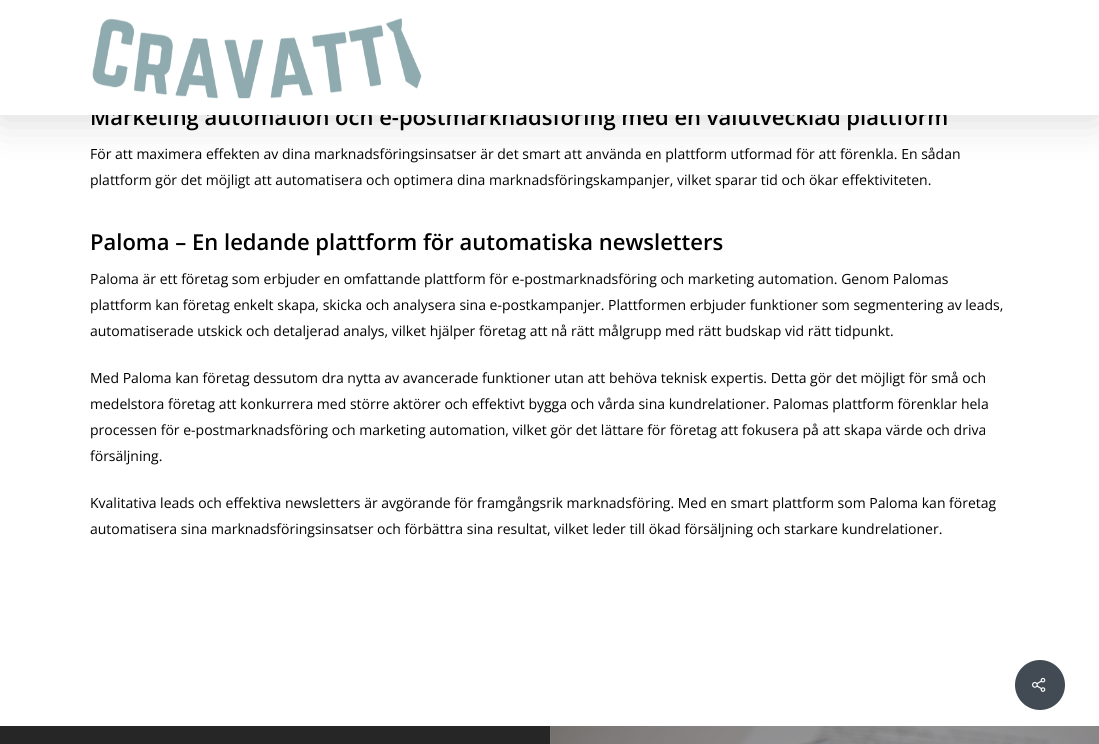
import math
import cairo

surface = cairo.ImageSurface(cairo.FORMAT_RGB24, 1099, 744)
c = cairo.Context(surface)
options = cairo.FontOptions()
options.set_hint_metrics(cairo.HINT_METRICS_OFF)
options.set_hint_style(cairo.HINT_STYLE_NONE)
c.set_font_options(options)
c.set_miter_limit(4)
def C(code):
 c.set_source_rgb(*(v / 255 for v in bytes.fromhex(code[-6:])))
def F(family, size, italic, bold):
 c.select_font_face(family, cairo.FONT_SLANT_ITALIC if italic else cairo.FONT_SLANT_NORMAL, cairo.FONT_WEIGHT_BOLD if bold else cairo.FONT_WEIGHT_NORMAL)
 c.set_font_size(size)
def T(x, y, s):
 c.move_to(x, y)
 c.show_text(s)
def R(x, y, w, h):
 c.rectangle(x, y, w, h)
 c.fill()
def Q(x, y, w, h, r):
 c.new_sub_path()
 for i, (u, v) in enumerate([(x + w - r, y + h - r), (x + r, y + h - r), (x + r, y + r), (x + w - r, y + r)]):
  c.arc(u, v, r, i * math.pi / 2, (i + 1) * math.pi / 2)
 c.close_path()
def S(x, y, w, h, r, blur, alpha):
 c.push_group_with_content(cairo.CONTENT_ALPHA)
 c.set_operator(cairo.OPERATOR_SOURCE)
 for i in range(15, -16, -2):
  e = blur * i / 6
  if min(w, h) + 2 * e > 0:
   c.set_source_rgba(0, 0, 0, alpha * math.erfc((i - 1) / 8.5) / 2)
   Q(x - e, y - e, w + 2 * e, h + 2 * e, max(0, min(r + e + blur * .6, min(w, h) / 2 + e)))
   c.fill()
 c.mask(c.pop_group())
def I(path, x, y, w, h):
 c.save()
 c.set_source_surface(cairo.ImageSurface.create_from_png(path), x, y)
 c.rectangle(x, y, w, h)
 c.fill()
 c.restore()
C('ffffff')
c.paint()
C('000000')
S(0,3,1099,115,0,22.5,.15)
F('Open Sans SemiBold',22,0,0)
C('000000')
T(90,125,'Marketing automation och e-postmarknadsföring med en välutvecklad plattform')
C('ffffff')
R(0,0,1099,115)
I('1.png',92,18,330,81)
F('Open Sans',14,0,0)
C('000000')
T(90,159,'För att maximera effekten av dina marknadsföringsinsatser är det smart att använda en plattform utformad för att förenkla. En sådan')
T(90,185,'plattform gör det möjligt att automatisera och optimera dina marknadsföringskampanjer, vilket sparar tid och ökar effektiviteten.')
F('Open Sans SemiBold',22,0,0)
T(90,250,'Paloma – En ledande plattform för automatiska newsletters')
F('Open Sans',14,0,0)
T(90,284,'Paloma är ett företag som erbjuder en omfattande plattform för e-postmarknadsföring och marketing automation. Genom Palomas')
T(90,310,'plattform kan företag enkelt skapa, skicka och analysera sina e-postkampanjer. Plattformen erbjuder funktioner som segmentering av leads,')
T(90,336,'automatiserade utskick och detaljerad analys, vilket hjälper företag att nå rätt målgrupp med rätt budskap vid rätt tidpunkt.')
T(90,383,'Med Paloma kan företag dessutom dra nytta av avancerade funktioner utan att behöva teknisk expertis. Detta gör det möjligt för små och')
T(90,409,'medelstora företag att konkurrera med större aktörer och effektivt bygga och vårda sina kundrelationer. Palomas plattform förenklar hela')
T(90,435,'processen för e-postmarknadsföring och marketing automation, vilket gör det lättare för företag att fokusera på att skapa värde och driva')
T(90,461,'försäljning.')
T(90,508,'Kvalitativa leads och effektiva newsletters är avgörande för framgångsrik marknadsföring. Med en smart plattform som Paloma kan företag')
T(90,534,'automatisera sina marknadsföringsinsatser och förbättra sina resultat, vilket leder till ökad försäljning och starkare kundrelationer.')
C('262626')
R(0,726,550,18)
I('2.png',550,726,549,18)
C('424b54')
c.arc(1040,685,25,0,2 * math.pi)
c.fill()
I('3.png',1032,677,14,15)
surface.write_to_png('o.png')
